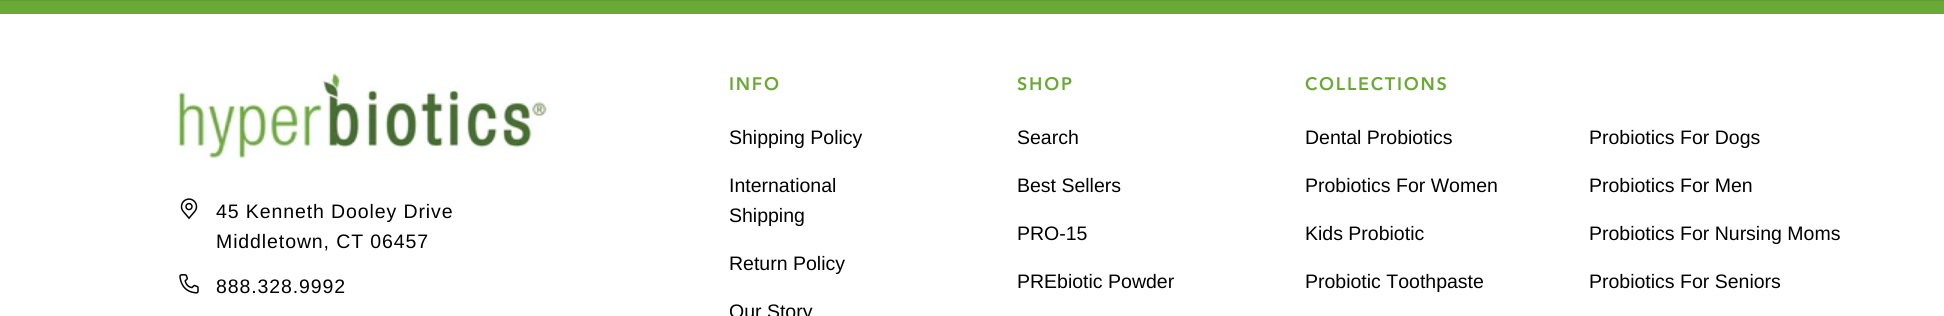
import math
import cairo

surface = cairo.ImageSurface(cairo.FORMAT_RGB24, 1944, 316)
c = cairo.Context(surface)
options = cairo.FontOptions()
options.set_hint_metrics(cairo.HINT_METRICS_OFF)
options.set_hint_style(cairo.HINT_STYLE_NONE)
c.set_font_options(options)
c.set_miter_limit(4)
def C(code):
 c.set_source_rgb(*(v / 255 for v in bytes.fromhex(code[-6:])))
def F(family, size, italic, bold):
 c.select_font_face(family, cairo.FONT_SLANT_ITALIC if italic else cairo.FONT_SLANT_NORMAL, cairo.FONT_WEIGHT_BOLD if bold else cairo.FONT_WEIGHT_NORMAL)
 c.set_font_size(size)
def T(x, y, s):
 c.move_to(x, y)
 c.show_text(s)
def L(x, y, s, letter, word):
 c.move_to(x, y)
 for ch in s:
  c.show_text(ch)
  c.rel_move_to(letter + word * (ch == ' '), 0)
def R(x, y, w, h):
 c.rectangle(x, y, w, h)
 c.fill()
def I(path, x, y, w, h):
 c.save()
 c.set_source_surface(cairo.ImageSurface.create_from_png(path), x, y)
 c.rectangle(x, y, w, h)
 c.fill()
 c.restore()
C('ffffff')
c.paint()
C('629b33')
R(0,0,1944,1)
C('6ba937')
R(0,1,1944,13)
I('1.png',178,73,371,86)
I('2.png',180,198,18,22)
F('Liberation Sans',19.5,0,0)
C('000000')
L(216,218,'45 Kenneth Dooley Drive',.9,0)
L(216,248,'Middletown, CT 06457',.9,0)
I('3.png',179,274,20,20)
L(216,293,'888.328.9992',.9,0)
F('Avenir Black',18,0,0)
C('6ba937')
L(729,90,'INFO',1.75,0)
F('Liberation Sans',19.5,0,0)
C('000000')
T(729,144,'Shipping Policy')
T(729,192,'International')
T(729,222,'Shipping')
T(729,270,'Return Policy')
T(729,318,'Our Story')
F('Avenir Black',18,0,0)
C('6ba937')
L(1017,90,'SHOP',1.75,0)
F('Liberation Sans',19.5,0,0)
C('000000')
T(1017,144,'Search')
T(1017,192,'Best Sellers')
T(1017,240,'PRO-15')
T(1017,288,'PREbiotic Powder')
F('Avenir Black',18,0,0)
C('6ba937')
L(1305,90,'COLLECTIONS',1.75,0)
F('Liberation Sans',19.5,0,0)
C('000000')
T(1305,144,'Dental Probiotics')
T(1589,144,'Probiotics For Dogs')
T(1305,192,'Probiotics For Women')
T(1589,192,'Probiotics For Men')
T(1305,240,'Kids Probiotic')
T(1589,240,'Probiotics For Nursing Moms')
T(1305,288,'Probiotic Toothpaste')
T(1589,288,'Probiotics For Seniors')
surface.write_to_png('o.png')
